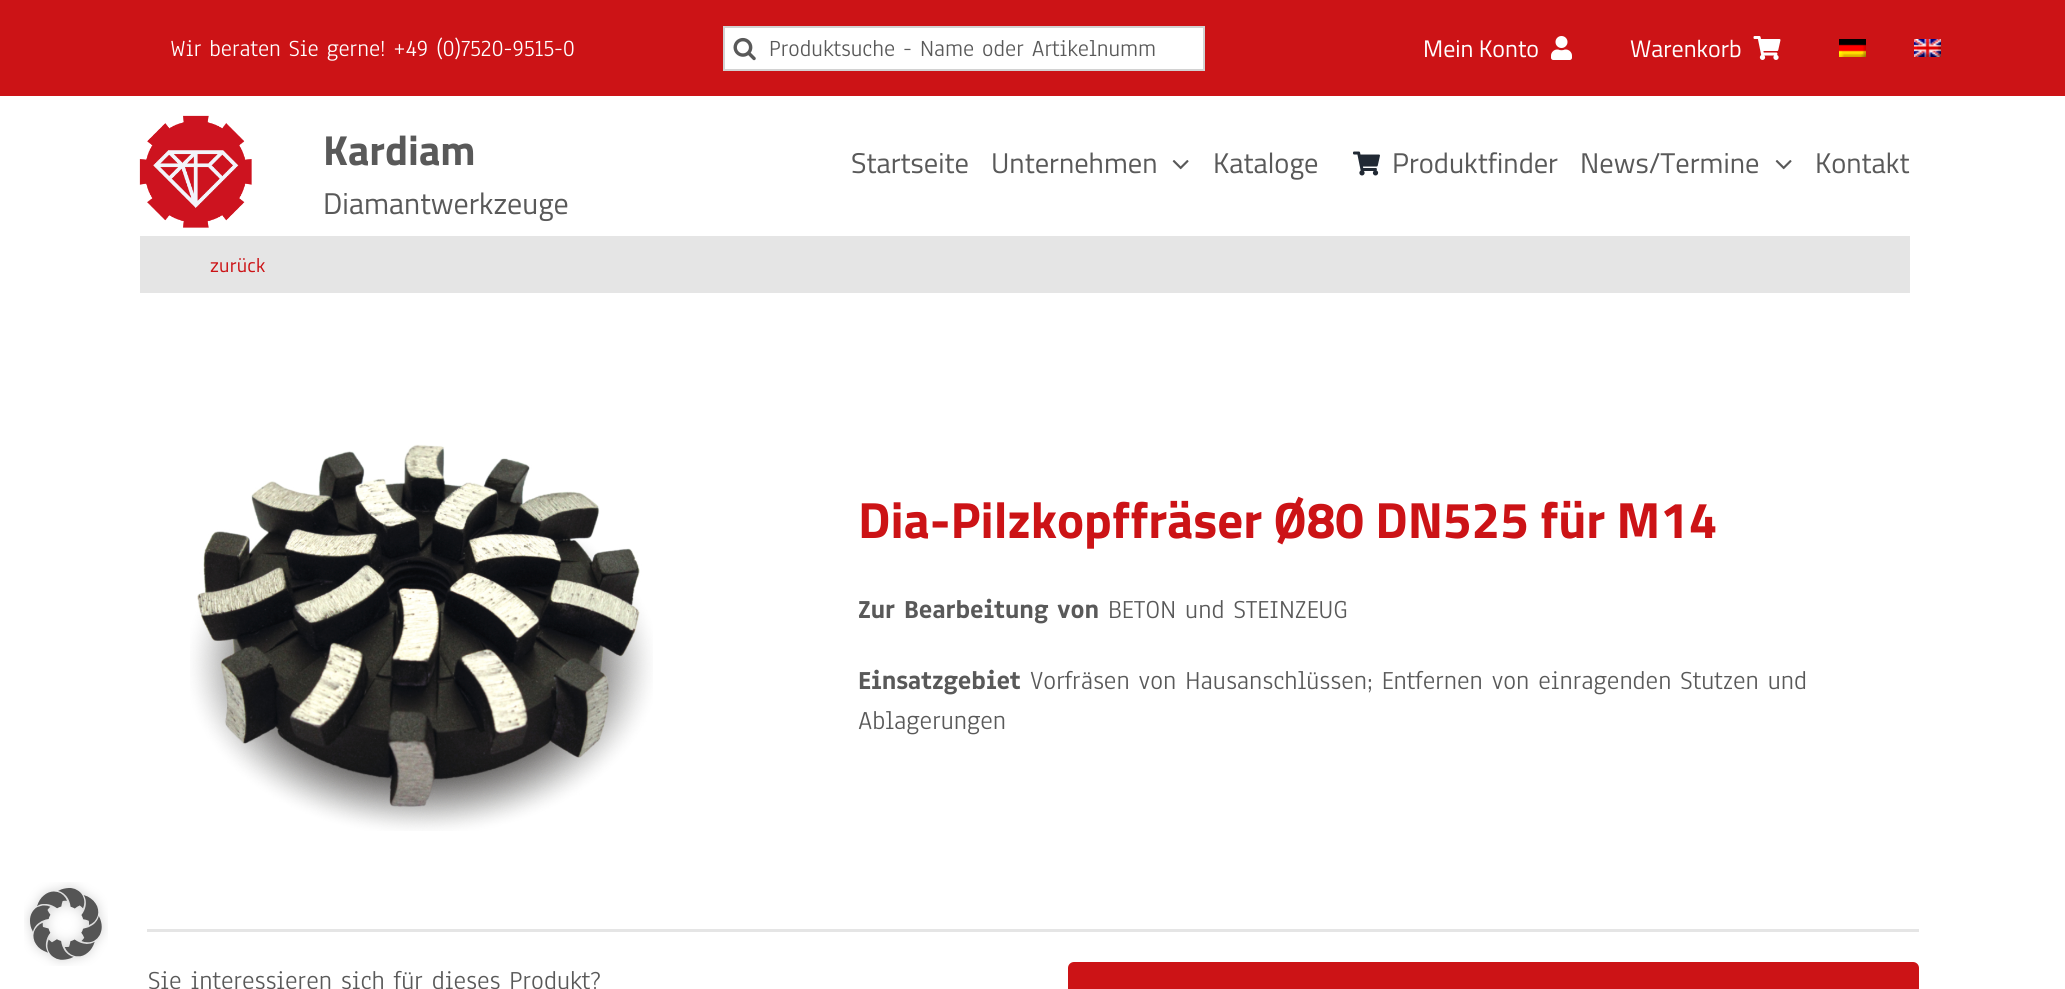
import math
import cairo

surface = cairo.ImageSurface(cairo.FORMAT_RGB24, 2065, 989)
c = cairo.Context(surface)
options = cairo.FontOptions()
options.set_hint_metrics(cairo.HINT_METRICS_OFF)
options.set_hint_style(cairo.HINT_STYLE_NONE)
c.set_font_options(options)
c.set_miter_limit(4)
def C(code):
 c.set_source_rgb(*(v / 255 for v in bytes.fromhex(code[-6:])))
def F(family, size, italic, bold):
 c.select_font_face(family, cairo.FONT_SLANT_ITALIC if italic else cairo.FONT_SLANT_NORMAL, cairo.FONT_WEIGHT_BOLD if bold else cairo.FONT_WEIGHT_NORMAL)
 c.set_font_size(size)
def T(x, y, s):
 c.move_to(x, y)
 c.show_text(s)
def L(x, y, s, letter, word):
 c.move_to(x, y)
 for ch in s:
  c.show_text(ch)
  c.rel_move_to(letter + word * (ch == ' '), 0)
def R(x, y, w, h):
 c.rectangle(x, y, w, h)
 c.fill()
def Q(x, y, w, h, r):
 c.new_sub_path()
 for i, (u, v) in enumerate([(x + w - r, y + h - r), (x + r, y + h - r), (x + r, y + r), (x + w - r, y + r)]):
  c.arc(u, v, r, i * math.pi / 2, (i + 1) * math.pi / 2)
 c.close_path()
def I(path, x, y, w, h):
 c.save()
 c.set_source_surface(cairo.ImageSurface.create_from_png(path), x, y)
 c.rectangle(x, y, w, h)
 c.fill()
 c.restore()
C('ffffff')
c.paint()
I('1.png',24,882,84,84)
C('cc1316')
R(0,0,2065,96)
F('Anaheim',24,0,0)
C('ffffff')
T(170,56,'Wir beraten Sie gerne! +49 (0)7520-9515-0')
c.rectangle(724,27,480,43)
c.fill_preserve()
C('d2d2d2')
c.stroke()
I('2.png',733,37,23,24)
C('595959')
T(769,56,'Produktsuche - Name oder Artikelnumm')
F('Titillium Web',24,0,0)
C('ffffff')
T(1423,57,'Mein Konto')
I('3.png',1551,36,21,24)
T(1630,57,'Warenkorb')
I('4.png',1753,36,28,24)
I('5.png',1839,39,27,18)
I('6.png',1914,39,27,18)
I('7.png',139,115,113,113)
F('Titillium Web',42,0,1)
C('595959')
T(323,165,'Kardiam')
F('Titillium Web',30,0,0)
T(323,214,'Diamantwerkzeuge')
F('Titillium Web',28.5,0,0)
T(851,173,'Startseite')
T(991,173,'Unternehmen')
I('8.png',1172,160,17,10)
T(1213,173,'Kataloge')
I('9.png',1353,151,27,25)
T(1392,173,'Produktfinder')
T(1580,173,'News/Termine')
I('8.png',1775,160,17,10)
T(1815,173,'Kontakt')
C('e5e5e5')
R(140,236,1770,57)
F('Titillium Web',19.5,0,0)
C('cc1316')
L(210,272,'zurück',.25,0)
I('10.png',190,444,463,387)
F('Titillium Web',51,0,1)
T(858,538,'Dia-Pilzkopffräser Ø80 DN525 für M14')
F('Anaheim',27,0,1)
C('595959')
T(858,618,'Zur Bearbeitung von')
F('Anaheim',27,0,0)
T(1108,618,'BETON und STEINZEUG')
F('Anaheim',27,0,1)
T(858,689,'Einsatzgebiet')
F('Anaheim',27,0,0)
T(1030,689,'Vorfräsen von Hausanschlüssen; Entfernen von einragenden Stutzen und')
T(858,729,'Ablagerungen')
C('e5e5e5')
R(147,929,1772,3)
C('595959')
T(148,989,'Sie interessieren sich für dieses Produkt?')
C('cc1316')
Q(1068,962,851,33,6)
c.fill()
surface.write_to_png('o.png')
